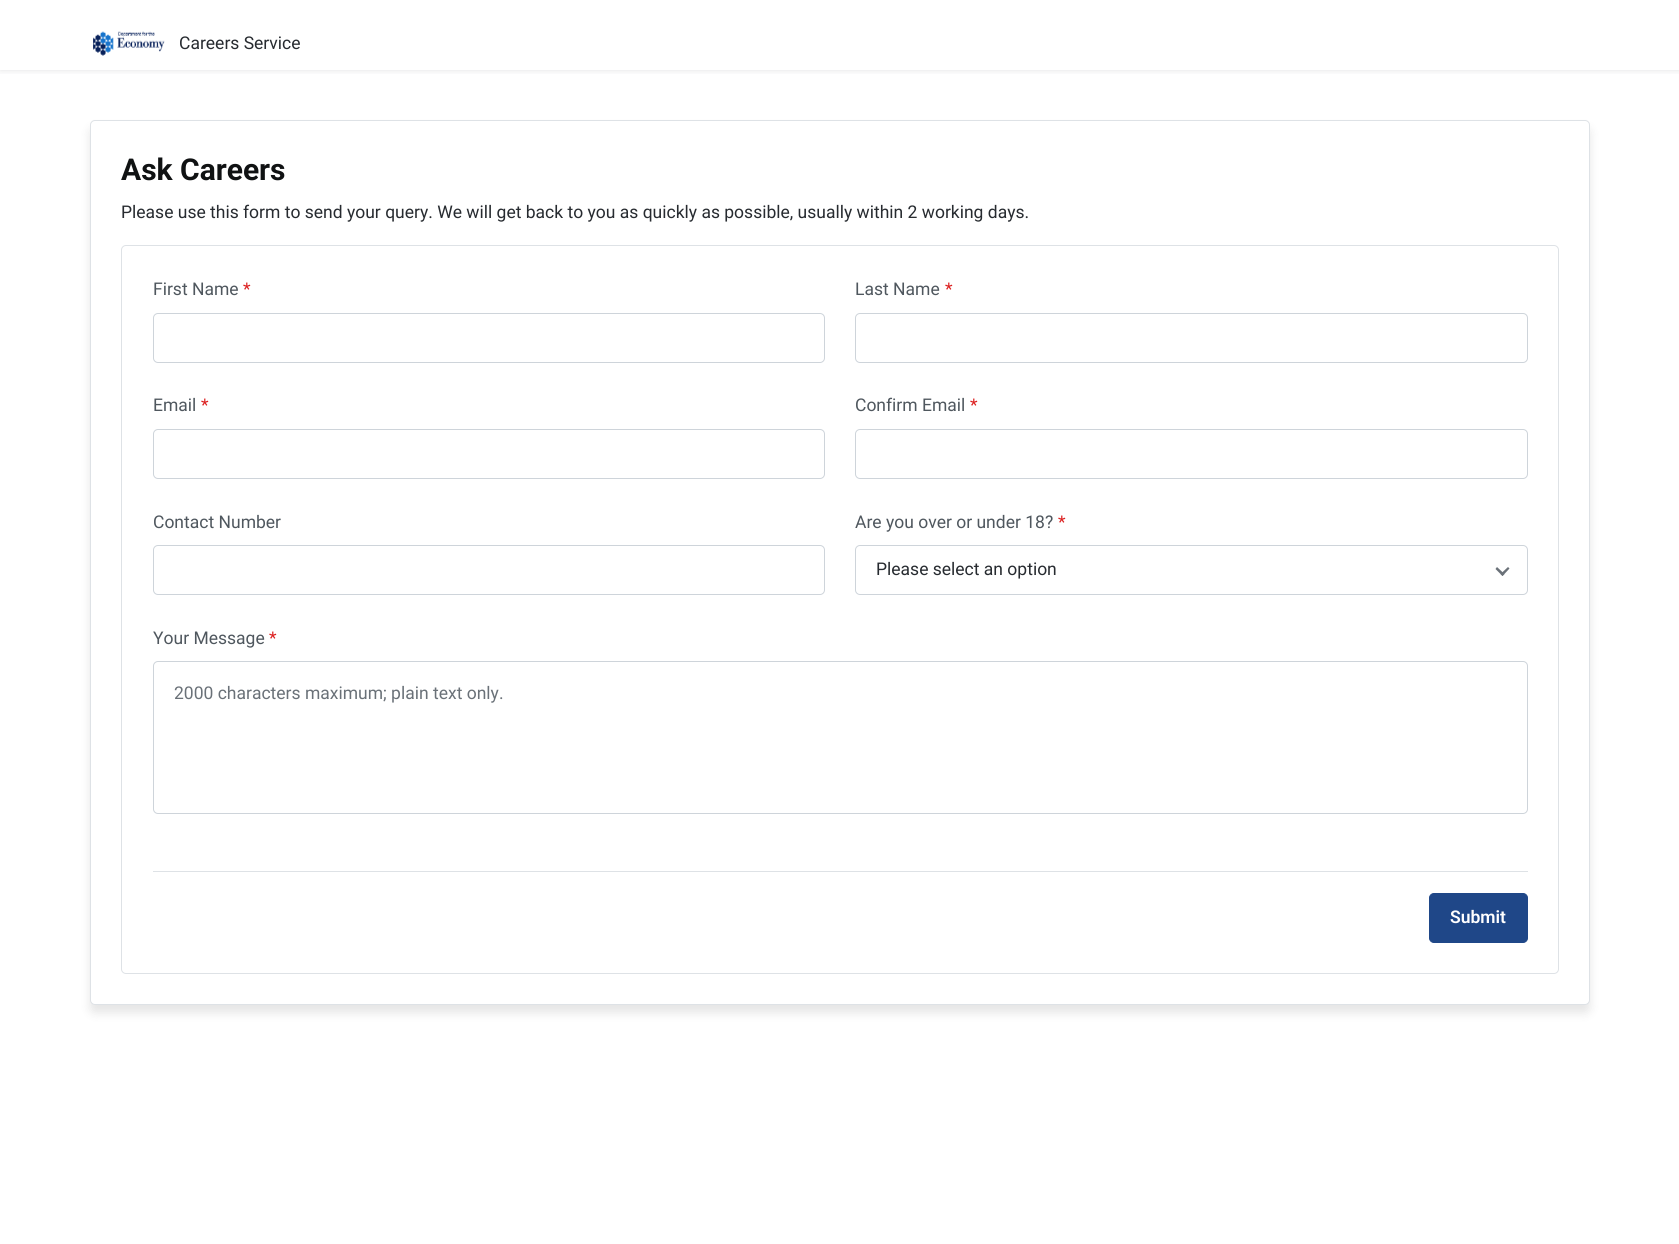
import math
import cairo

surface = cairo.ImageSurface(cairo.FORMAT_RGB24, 1679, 1244)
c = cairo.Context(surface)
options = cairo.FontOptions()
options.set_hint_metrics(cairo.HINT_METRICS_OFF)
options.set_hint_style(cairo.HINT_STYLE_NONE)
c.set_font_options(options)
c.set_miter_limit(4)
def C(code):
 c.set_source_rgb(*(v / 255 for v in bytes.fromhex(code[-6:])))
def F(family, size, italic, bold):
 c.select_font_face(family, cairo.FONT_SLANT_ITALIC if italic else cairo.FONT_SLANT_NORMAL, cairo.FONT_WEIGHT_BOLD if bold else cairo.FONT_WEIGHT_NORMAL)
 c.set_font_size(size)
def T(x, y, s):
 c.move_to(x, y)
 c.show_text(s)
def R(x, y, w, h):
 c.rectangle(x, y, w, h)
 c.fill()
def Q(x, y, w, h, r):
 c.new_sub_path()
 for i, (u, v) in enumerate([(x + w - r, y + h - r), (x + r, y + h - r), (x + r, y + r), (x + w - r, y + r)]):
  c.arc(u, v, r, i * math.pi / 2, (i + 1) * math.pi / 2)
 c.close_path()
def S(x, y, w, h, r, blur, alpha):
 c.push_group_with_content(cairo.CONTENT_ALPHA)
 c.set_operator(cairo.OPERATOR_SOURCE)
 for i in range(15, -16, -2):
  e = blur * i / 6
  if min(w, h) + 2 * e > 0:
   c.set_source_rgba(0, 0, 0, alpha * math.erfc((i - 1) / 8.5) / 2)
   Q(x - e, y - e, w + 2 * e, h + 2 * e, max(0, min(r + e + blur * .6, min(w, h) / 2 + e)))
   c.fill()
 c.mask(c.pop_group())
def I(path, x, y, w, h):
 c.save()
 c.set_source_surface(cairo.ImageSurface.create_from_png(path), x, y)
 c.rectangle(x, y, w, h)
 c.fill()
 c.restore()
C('ffffff')
c.paint()
c.save()
c.rectangle(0,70,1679,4)
c.clip()
C('15181a')
S(0,1,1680,70,0,3,.1)
c.restore()
I('1.png',93,31,72,25)
F('Roboto',17.5,0,0)
C('272b30')
T(179,49,'Careers Service')
C('000000')
S(90,128,1500,885,5,5,.1)
C('ffffff')
Q(90.5,120.5,1499,884,4.5)
c.fill_preserve()
C('dee2e6')
c.set_line_width(1)
c.stroke()
F('Roboto',30,0,1)
C('101213')
T(121,180,'Ask Careers')
F('Roboto',17.5,0,0)
C('272b30')
T(121,218,'Please use this form to send your query. We will get back to you as quickly as possible, usually within 2 working days.')
Q(121.5,245.5,1437,728,4.5)
C('dee2e6')
c.stroke()
C('4f575e')
T(153,295,'First Name')
C('dc2020')
T(243,295,'*')
Q(153.5,313.5,671,49,4.5)
C('ced4da')
c.stroke()
C('4f575e')
T(855,295,'Last Name')
C('dc2020')
T(945,295,'*')
Q(855.5,313.5,672,49,4.5)
C('ced4da')
c.stroke()
C('4f575e')
T(153,411,'Email')
C('dc2020')
T(201,411,'*')
Q(153.5,429.5,671,49,4.5)
C('ced4da')
c.stroke()
C('4f575e')
T(855,411,'Confirm Email')
C('dc2020')
T(970,411,'*')
Q(855.5,429.5,672,49,4.5)
C('ced4da')
c.stroke()
C('4f575e')
T(153,528,'Contact Number')
Q(153.5,545.5,671,49,4.5)
C('ced4da')
c.stroke()
C('4f575e')
T(855,528,'Are you over or under 18?')
C('dc2020')
T(1058,528,'*')
Q(855.5,545.5,672,49,4.5)
C('ced4da')
c.stroke()
C('272b30')
T(876,575,'Please select an option')
C('6a7178')
c.new_path()
c.move_to(1500.5,574)
c.line_to(1508,567)
c.line_to(1509.5,568.5)
c.line_to(1502.5,576)
c.close_path()
c.fill()
c.new_path()
c.move_to(1495.5,569)
c.line_to(1497,567)
c.line_to(1504.5,574)
c.line_to(1502.5,576)
c.close_path()
c.fill()
C('4f575e')
T(153,644,'Your Message')
C('dc2020')
T(269,644,'*')
Q(153.5,661.5,1374,152,4.5)
C('ced4da')
c.stroke()
C('6a7178')
T(174,699,'2000 characters maximum; plain text only.')
C('dee2e6')
R(153,871,1375,1)
C('1f4788')
Q(1429.5,893.5,98,49,4.5)
c.fill_preserve()
c.stroke()
F('Roboto SemiBold',17.5,0,0)
C('ffffff')
T(1450,923,'Submit')
surface.write_to_png('o.png')
